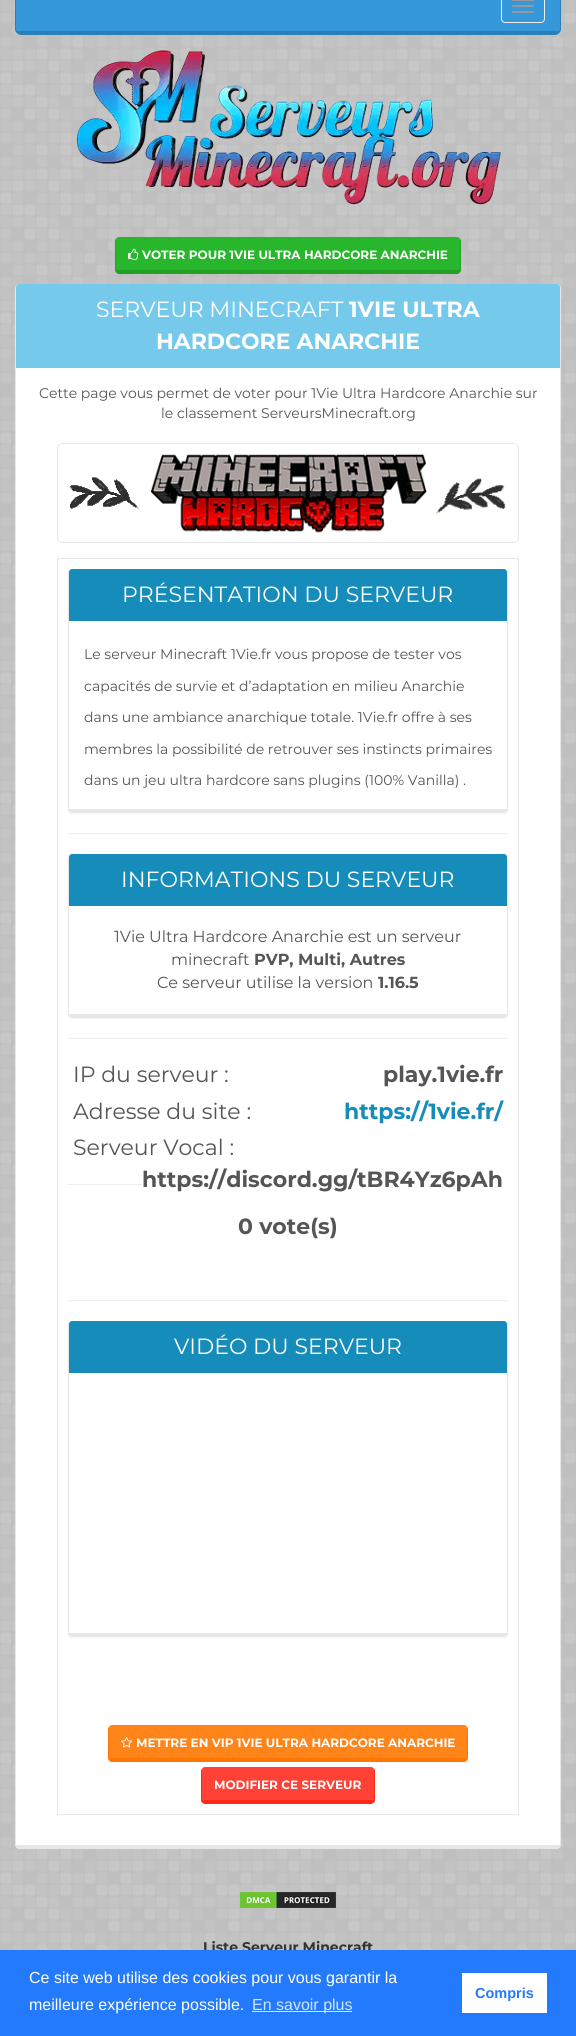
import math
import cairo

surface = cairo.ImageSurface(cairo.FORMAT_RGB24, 576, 2036)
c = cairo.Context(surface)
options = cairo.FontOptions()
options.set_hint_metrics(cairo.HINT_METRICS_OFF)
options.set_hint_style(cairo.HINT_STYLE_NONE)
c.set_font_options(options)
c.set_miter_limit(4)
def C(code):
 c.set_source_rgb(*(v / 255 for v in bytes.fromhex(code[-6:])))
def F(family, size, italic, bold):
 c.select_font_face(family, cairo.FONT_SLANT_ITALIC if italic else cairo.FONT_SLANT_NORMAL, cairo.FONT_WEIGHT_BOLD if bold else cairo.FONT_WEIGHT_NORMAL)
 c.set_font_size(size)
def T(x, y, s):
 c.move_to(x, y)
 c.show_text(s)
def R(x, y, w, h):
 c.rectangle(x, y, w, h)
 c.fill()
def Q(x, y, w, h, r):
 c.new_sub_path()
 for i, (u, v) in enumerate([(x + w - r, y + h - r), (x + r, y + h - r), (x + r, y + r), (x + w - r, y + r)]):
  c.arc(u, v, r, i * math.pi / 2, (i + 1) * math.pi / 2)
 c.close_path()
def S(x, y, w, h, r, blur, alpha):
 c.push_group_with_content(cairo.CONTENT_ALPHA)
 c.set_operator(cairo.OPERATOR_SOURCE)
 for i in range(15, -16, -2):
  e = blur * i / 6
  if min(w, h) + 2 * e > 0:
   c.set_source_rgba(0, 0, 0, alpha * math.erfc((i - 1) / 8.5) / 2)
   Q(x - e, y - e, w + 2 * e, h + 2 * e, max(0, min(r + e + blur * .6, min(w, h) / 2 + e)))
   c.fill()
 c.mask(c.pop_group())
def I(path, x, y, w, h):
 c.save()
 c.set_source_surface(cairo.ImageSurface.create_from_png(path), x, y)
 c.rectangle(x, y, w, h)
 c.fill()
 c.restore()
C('ffffff')
c.paint()
I('1.png',0,0,576,1950)
C('3498db')
c.new_path()
c.move_to(21,-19)
c.line_to(555,-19)
c.curve_to(558,-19,560,-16,560,-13)
c.line_to(560,29)
c.curve_to(560,30,558,31,555,31)
c.line_to(21,31)
c.curve_to(18,31,16,30,16,29)
c.line_to(16,-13)
c.curve_to(16,-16,18,-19,21,-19)
c.close_path()
c.fill()
C('2980b9')
c.set_fill_rule(cairo.FILL_RULE_EVEN_ODD)
c.new_path()
c.move_to(21,-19)
c.line_to(555,-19)
c.curve_to(558,-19,561,-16,561,-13)
c.line_to(561,29)
c.curve_to(561,32,558,35,555,35)
c.line_to(21,35)
c.curve_to(18,35,15,32,15,29)
c.line_to(15,-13)
c.curve_to(15,-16,18,-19,21,-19)
c.close_path()
c.move_to(21,-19)
c.line_to(555,-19)
c.curve_to(558,-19,560,-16,560,-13)
c.line_to(560,29)
c.curve_to(560,30,558,31,555,31)
c.line_to(21,31)
c.curve_to(18,31,16,30,16,29)
c.line_to(16,-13)
c.curve_to(16,-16,18,-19,21,-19)
c.close_path()
c.fill()
Q(501.5,-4.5,43,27,3.5)
C('eeeeee')
c.set_line_width(1)
c.stroke()
C('999999')
Q(512,-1,22,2,1)
c.fill()
Q(512,5,22,2,1)
c.fill()
Q(512,11,22,2,1)
c.fill()
I('2.png',76,50,425,155)
C('28b62c')
c.set_fill_rule(cairo.FILL_RULE_WINDING)
c.new_path()
c.move_to(119,237)
c.line_to(457,237)
c.curve_to(459,237,460,239,460,241)
c.line_to(460,270)
c.line_to(116,270)
c.line_to(116,241)
c.curve_to(116,239,117,237,119,237)
c.close_path()
c.fill()
C('23a127')
c.set_fill_rule(cairo.FILL_RULE_EVEN_ODD)
c.new_path()
c.move_to(119,237)
c.line_to(457,237)
c.curve_to(459,237,461,239,461,241)
c.line_to(461,270)
c.curve_to(461,272,459,274,457,274)
c.line_to(119,274)
c.curve_to(117,274,115,272,115,270)
c.line_to(115,241)
c.curve_to(115,239,117,237,119,237)
c.close_path()
c.move_to(119,237)
c.line_to(457,237)
c.curve_to(459,237,460,239,460,241)
c.line_to(460,270)
c.line_to(116,270)
c.line_to(116,241)
c.curve_to(116,239,117,237,119,237)
c.close_path()
c.fill()
I('3.png',128,248,11,12)
F('Montserrat',12,0,1)
C('ffffff')
T(142,259,'VOTER POUR 1VIE ULTRA HARDCORE ANARCHIE')
c.set_fill_rule(cairo.FILL_RULE_WINDING)
c.new_path()
c.move_to(19,284)
c.line_to(557,284)
c.curve_to(559,284,560,286,560,288)
c.line_to(560,1845)
c.line_to(16,1845)
c.line_to(16,288)
c.curve_to(16,286,17,284,19,284)
c.close_path()
c.fill()
C('e7e7e7')
c.set_fill_rule(cairo.FILL_RULE_EVEN_ODD)
c.new_path()
c.move_to(19,284)
c.line_to(557,284)
c.curve_to(559,284,561,286,561,288)
c.line_to(561,1845)
c.curve_to(561,1847,559,1849,557,1849)
c.line_to(19,1849)
c.curve_to(17,1849,15,1847,15,1845)
c.line_to(15,288)
c.curve_to(15,286,17,284,19,284)
c.close_path()
c.move_to(19,284)
c.line_to(557,284)
c.curve_to(559,284,560,286,560,288)
c.line_to(560,1845)
c.line_to(16,1845)
c.line_to(16,288)
c.curve_to(16,286,17,284,19,284)
c.close_path()
c.fill()
C('75caeb')
c.new_path()
c.move_to(19,284)
c.line_to(557,284)
c.curve_to(558.5,284,560,285.5,560,287)
c.line_to(560,368)
c.line_to(16,368)
c.line_to(16,287)
c.curve_to(16,285.5,17.5,284,19,284)
c.close_path()
c.fill()
F('Montserrat',22,0,0)
C('ffffff')
T(96,317,'SERVEUR MINECRAFT')
F('Montserrat',22,0,1)
T(349,317,'1VIE ULTRA')
T(156,349,'HARDCORE ANARCHIE')
F('Montserrat',14,0,0)
C('555555')
T(39,398,'Cette page vous permet de voter pour 1Vie Ultra Hardcore Anarchie sur')
T(161,418,'le classement ServeursMinecraft.org')
Q(57.5,443.5,461,99,5.5)
C('e7e7e7')
c.stroke()
I('4.png',58,444,460,97)
c.rectangle(57.5,558.5,461,1256)
c.stroke()
c.save()
c.new_path()
c.move_to(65,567)
c.line_to(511,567)
c.line_to(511,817)
c.line_to(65,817)
c.close_path()
c.move_to(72,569)
c.line_to(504,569)
c.curve_to(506,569,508,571,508,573)
c.line_to(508,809)
c.curve_to(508,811,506,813,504,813)
c.line_to(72,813)
c.curve_to(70,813,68,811,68,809)
c.line_to(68,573)
c.curve_to(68,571,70,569,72,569)
c.close_path()
c.clip()
C('000000')
S(68,570,440,244,4,.5,.05)
c.restore()
c.new_path()
c.move_to(72,569)
c.line_to(504,569)
c.curve_to(506,569,508,571,508,573)
c.line_to(508,809)
c.curve_to(508,811,506,813,504,813)
c.line_to(72,813)
c.curve_to(70,813,68,811,68,809)
c.line_to(68,573)
c.curve_to(68,571,70,569,72,569)
c.close_path()
c.move_to(72,569)
c.line_to(504,569)
c.curve_to(506,569,507,571,507,573)
c.line_to(507,809)
c.line_to(69,809)
c.line_to(69,573)
c.curve_to(69,571,70,569,72,569)
c.close_path()
c.fill()
C('158cba')
c.new_path()
c.move_to(72,569)
c.line_to(504,569)
c.curve_to(505.5,569,507,570.5,507,572)
c.line_to(507,621)
c.line_to(69,621)
c.line_to(69,572)
c.curve_to(69,570.5,70.5,569,72,569)
c.close_path()
c.fill()
F('Montserrat',22,0,0)
C('ffffff')
T(122,602,'PRÉSENTATION DU SERVEUR')
F('Montserrat',14,0,0)
C('555555')
T(84,659,'Le serveur Minecraft 1Vie.fr vous propose de tester vos')
T(84,691,'capacités de survie et d’adaptation en milieu Anarchie')
T(84,722,'dans une ambiance anarchique totale. 1Vie.fr offre à ses')
T(84,754,'membres la possibilité de retrouver ses instincts primaires')
T(84,785,'dans un jeu ultra hardcore sans plugins (100% Vanilla) .')
C('eeeeee')
R(68,833,440,1)
c.save()
c.new_path()
c.move_to(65,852)
c.line_to(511,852)
c.line_to(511,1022)
c.line_to(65,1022)
c.close_path()
c.move_to(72,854)
c.line_to(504,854)
c.curve_to(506,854,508,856,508,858)
c.line_to(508,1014)
c.curve_to(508,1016,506,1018,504,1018)
c.line_to(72,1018)
c.curve_to(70,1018,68,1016,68,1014)
c.line_to(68,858)
c.curve_to(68,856,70,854,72,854)
c.close_path()
c.clip()
C('000000')
S(68,855,440,164,4,.5,.05)
c.restore()
C('e7e7e7')
c.new_path()
c.move_to(72,854)
c.line_to(504,854)
c.curve_to(506,854,508,856,508,858)
c.line_to(508,1014)
c.curve_to(508,1016,506,1018,504,1018)
c.line_to(72,1018)
c.curve_to(70,1018,68,1016,68,1014)
c.line_to(68,858)
c.curve_to(68,856,70,854,72,854)
c.close_path()
c.move_to(72,854)
c.line_to(504,854)
c.curve_to(506,854,507,856,507,858)
c.line_to(507,1014)
c.line_to(69,1014)
c.line_to(69,858)
c.curve_to(69,856,70,854,72,854)
c.close_path()
c.fill()
C('158cba')
c.new_path()
c.move_to(72,854)
c.line_to(504,854)
c.curve_to(505.5,854,507,855.5,507,857)
c.line_to(507,906)
c.line_to(69,906)
c.line_to(69,857)
c.curve_to(69,855.5,70.5,854,72,854)
c.close_path()
c.fill()
F('Montserrat',22,0,0)
C('ffffff')
T(121,887,'INFORMATIONS DU SERVEUR')
F('Montserrat',16,0,0)
C('555555')
T(114,942,'1Vie Ultra Hardcore Anarchie est un serveur')
T(171,965,'minecraft')
F('Montserrat',16,0,1)
T(254,965,'PVP, Multi, Autres')
F('Montserrat',16,0,0)
T(157,988,'Ce serveur utilise la version')
F('Montserrat',16,0,1)
T(378,988,'1.16.5')
C('eeeeee')
R(68,1038,440,1)
F('Montserrat',22,0,0)
C('555555')
T(73,1082,'IP du serveur :')
F('Montserrat',22,0,1)
T(383,1082,'play.1vie.fr')
F('Montserrat',22,0,0)
T(73,1119,'Adresse du site :')
F('Montserrat',22,0,1)
C('158cba')
T(344,1119,'https://1vie.fr/')
F('Montserrat',22,0,0)
C('555555')
T(73,1155,'Serveur Vocal :')
F('Montserrat',22,0,1)
T(142,1187,'https://discord.gg/tBR4Yz6pAh')
C('eeeeee')
R(68,1184,74,1)
C('555555')
T(238,1234,'0 vote(s)')
C('eeeeee')
R(68,1300,440,1)
c.save()
c.new_path()
c.move_to(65,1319)
c.line_to(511,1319)
c.line_to(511,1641)
c.line_to(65,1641)
c.close_path()
c.move_to(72,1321)
c.line_to(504,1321)
c.curve_to(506,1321,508,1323,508,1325)
c.line_to(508,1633)
c.curve_to(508,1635,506,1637,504,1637)
c.line_to(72,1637)
c.curve_to(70,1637,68,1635,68,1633)
c.line_to(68,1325)
c.curve_to(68,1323,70,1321,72,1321)
c.close_path()
c.clip()
C('000000')
S(68,1322,440,316,4,.5,.05)
c.restore()
C('e7e7e7')
c.new_path()
c.move_to(72,1321)
c.line_to(504,1321)
c.curve_to(506,1321,508,1323,508,1325)
c.line_to(508,1633)
c.curve_to(508,1635,506,1637,504,1637)
c.line_to(72,1637)
c.curve_to(70,1637,68,1635,68,1633)
c.line_to(68,1325)
c.curve_to(68,1323,70,1321,72,1321)
c.close_path()
c.move_to(72,1321)
c.line_to(504,1321)
c.curve_to(506,1321,507,1323,507,1325)
c.line_to(507,1633)
c.line_to(69,1633)
c.line_to(69,1325)
c.curve_to(69,1323,70,1321,72,1321)
c.close_path()
c.fill()
C('158cba')
c.new_path()
c.move_to(72,1321)
c.line_to(504,1321)
c.curve_to(505.5,1321,507,1322.5,507,1324)
c.line_to(507,1373)
c.line_to(69,1373)
c.line_to(69,1324)
c.curve_to(69,1322.5,70.5,1321,72,1321)
c.close_path()
c.fill()
F('Montserrat',22,0,0)
C('ffffff')
T(174,1354,'VIDÉO DU SERVEUR')
C('ff851b')
c.set_fill_rule(cairo.FILL_RULE_WINDING)
c.new_path()
c.move_to(112,1725)
c.line_to(464,1725)
c.curve_to(466,1725,467,1727,467,1729)
c.line_to(467,1758)
c.line_to(109,1758)
c.line_to(109,1729)
c.curve_to(109,1727,110,1725,112,1725)
c.close_path()
c.fill()
C('ff7701')
c.set_fill_rule(cairo.FILL_RULE_EVEN_ODD)
c.new_path()
c.move_to(112,1725)
c.line_to(464,1725)
c.curve_to(466,1725,468,1727,468,1729)
c.line_to(468,1758)
c.curve_to(468,1760,466,1762,464,1762)
c.line_to(112,1762)
c.curve_to(110,1762,108,1760,108,1758)
c.line_to(108,1729)
c.curve_to(108,1727,110,1725,112,1725)
c.close_path()
c.move_to(112,1725)
c.line_to(464,1725)
c.curve_to(466,1725,467,1727,467,1729)
c.line_to(467,1758)
c.line_to(109,1758)
c.line_to(109,1729)
c.curve_to(109,1727,110,1725,112,1725)
c.close_path()
c.fill()
I('5.png',121,1737,12,11)
F('Montserrat',12,0,1)
C('ffffff')
T(136,1747,'METTRE EN VIP 1VIE ULTRA HARDCORE ANARCHIE')
C('ff4136')
c.set_fill_rule(cairo.FILL_RULE_WINDING)
c.new_path()
c.move_to(205,1767)
c.line_to(371,1767)
c.curve_to(373,1767,374,1769,374,1771)
c.line_to(374,1800)
c.line_to(202,1800)
c.line_to(202,1771)
c.curve_to(202,1769,203,1767,205,1767)
c.close_path()
c.fill()
C('ff291c')
c.set_fill_rule(cairo.FILL_RULE_EVEN_ODD)
c.new_path()
c.move_to(205,1767)
c.line_to(371,1767)
c.curve_to(373,1767,375,1769,375,1771)
c.line_to(375,1800)
c.curve_to(375,1802,373,1804,371,1804)
c.line_to(205,1804)
c.curve_to(203,1804,201,1802,201,1800)
c.line_to(201,1771)
c.curve_to(201,1769,203,1767,205,1767)
c.close_path()
c.move_to(205,1767)
c.line_to(371,1767)
c.curve_to(373,1767,374,1769,374,1771)
c.line_to(374,1800)
c.line_to(202,1800)
c.line_to(202,1771)
c.curve_to(202,1769,203,1767,205,1767)
c.close_path()
c.fill()
C('ffffff')
T(214,1789,'MODIFIER CE SERVEUR')
I('6.png',240,1892,96,16)
F('Montserrat',14,0,1)
C('333333')
T(203,1952,'Liste Serveur Minecraft')
C('237afc')
R(0,1950,576,86)
F('Liberation Sans',16,0,0)
C('ffffff')
T(29,1983,'Ce site web utilise des cookies pour vous garantir la')
T(29,2010,'meilleure expérience possible.')
C('d3e4fe')
R(252,2011,100,1)
T(252,2010,'En savoir plus')
C('ffffff')
R(462,1973,85,40)
F('Liberation Sans',14.5,0,1)
C('237afc')
T(475,1998,'Compris')
surface.write_to_png('o.png')
